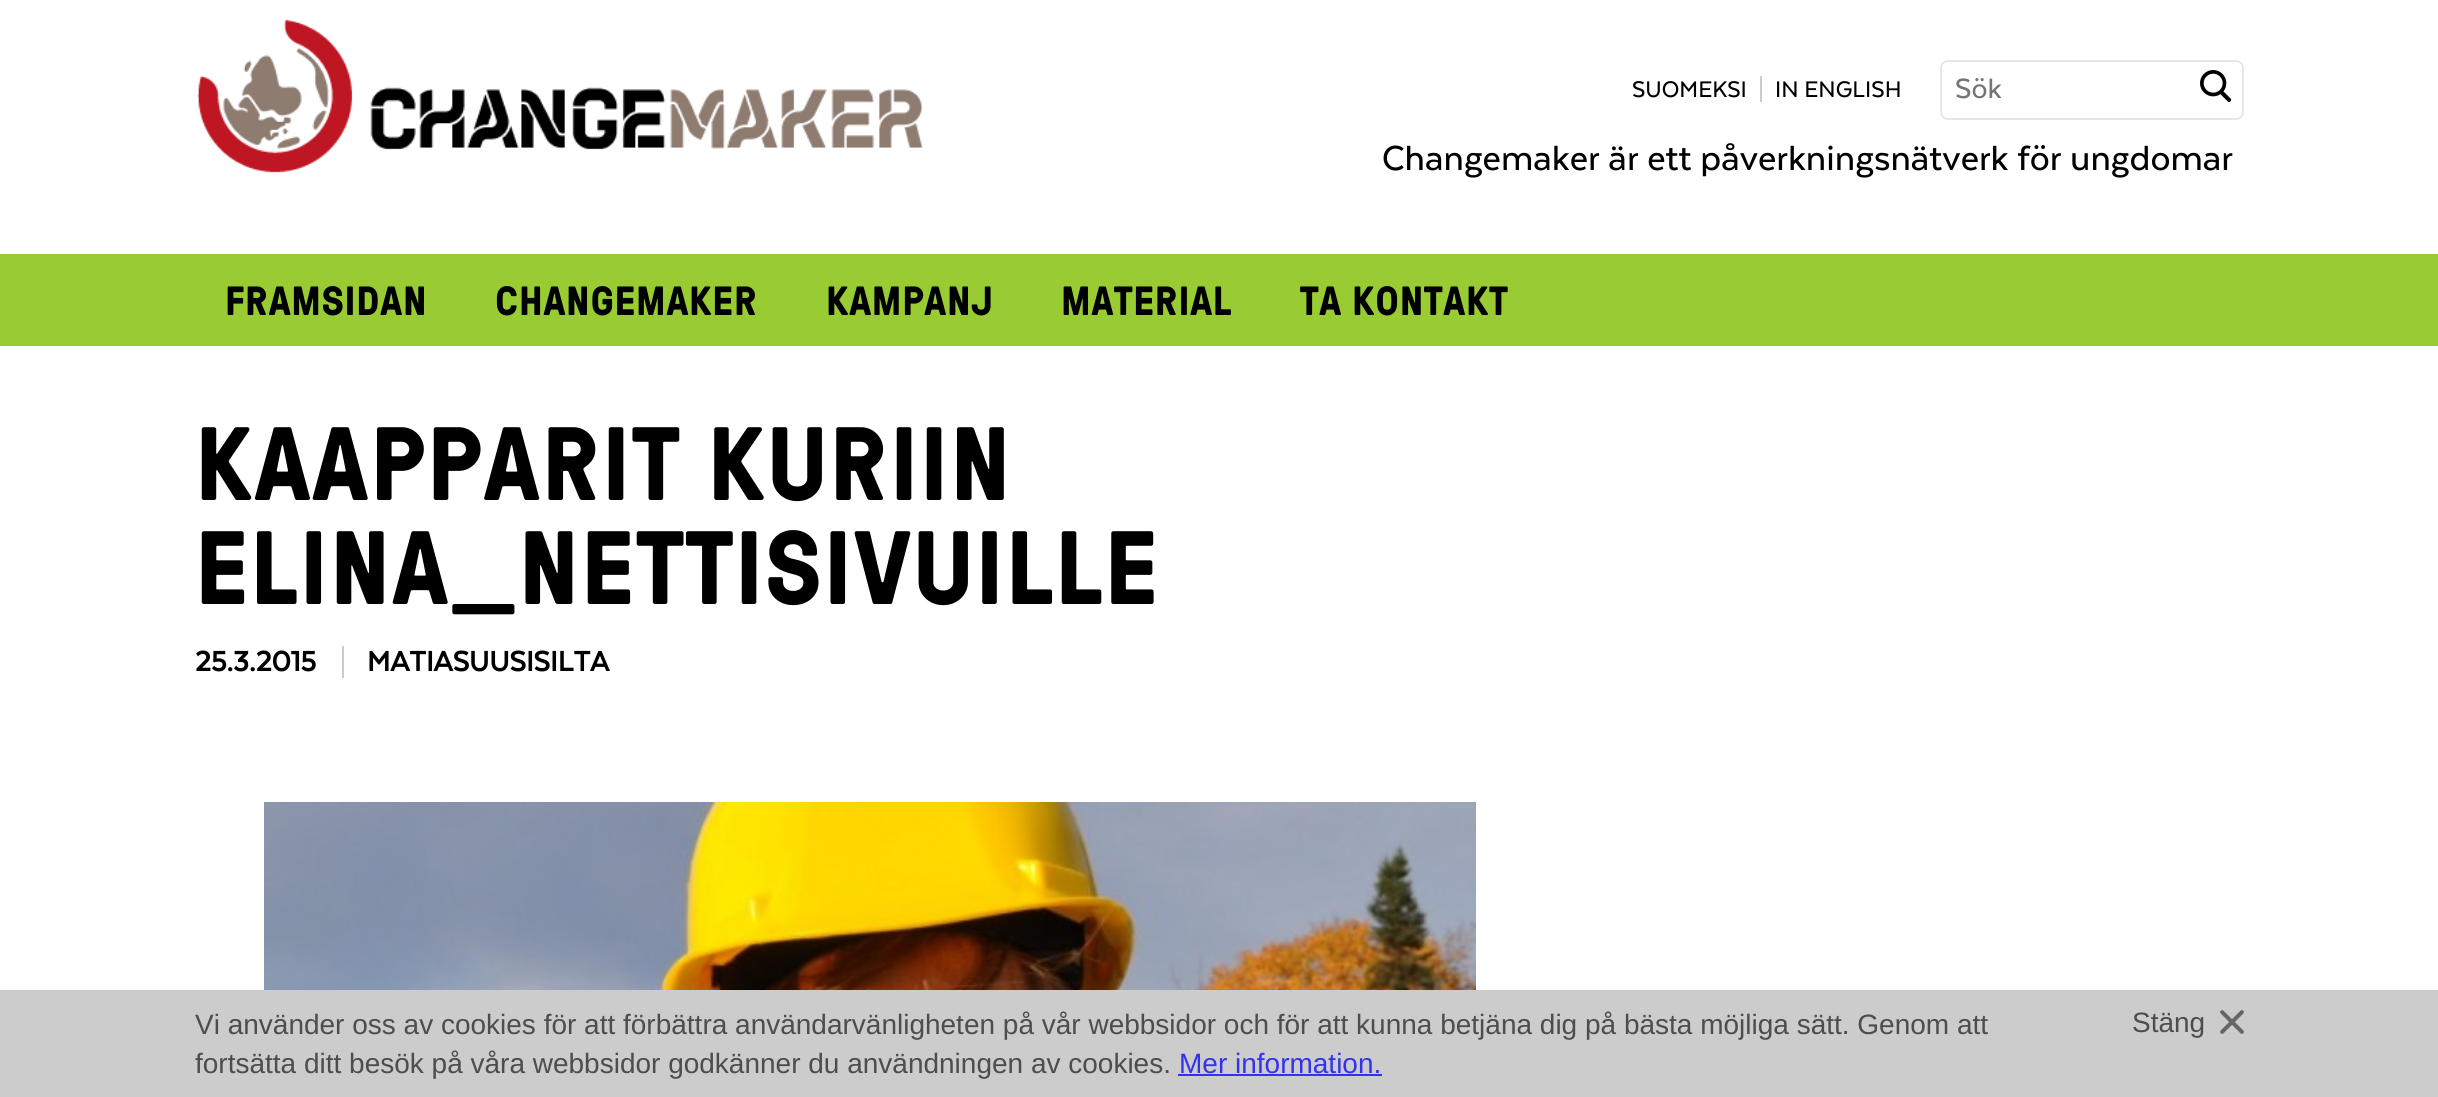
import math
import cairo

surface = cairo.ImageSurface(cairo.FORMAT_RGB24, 2438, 1097)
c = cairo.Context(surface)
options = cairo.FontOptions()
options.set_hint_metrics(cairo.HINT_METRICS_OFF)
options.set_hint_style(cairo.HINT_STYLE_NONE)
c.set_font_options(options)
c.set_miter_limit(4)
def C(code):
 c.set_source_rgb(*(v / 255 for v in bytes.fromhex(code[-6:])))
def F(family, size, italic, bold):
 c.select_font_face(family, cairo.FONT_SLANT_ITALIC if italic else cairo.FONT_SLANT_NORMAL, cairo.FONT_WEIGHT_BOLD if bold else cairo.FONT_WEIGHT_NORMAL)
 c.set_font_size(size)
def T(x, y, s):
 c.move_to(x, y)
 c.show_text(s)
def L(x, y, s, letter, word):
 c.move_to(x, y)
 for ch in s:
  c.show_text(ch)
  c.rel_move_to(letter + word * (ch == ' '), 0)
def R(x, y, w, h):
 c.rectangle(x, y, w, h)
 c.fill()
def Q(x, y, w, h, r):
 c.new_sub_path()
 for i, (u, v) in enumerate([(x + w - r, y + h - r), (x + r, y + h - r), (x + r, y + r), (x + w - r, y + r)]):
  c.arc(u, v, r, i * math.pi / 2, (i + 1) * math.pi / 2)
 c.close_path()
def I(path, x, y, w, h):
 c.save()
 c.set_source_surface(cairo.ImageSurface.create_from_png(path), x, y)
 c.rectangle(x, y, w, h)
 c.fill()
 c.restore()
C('ffffff')
c.paint()
I('1.png',197,19,726,154)
F('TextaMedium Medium',26,0,0)
C('000000')
T(1632,97,'SUOMEKSI')
T(1775,97,'IN ENGLISH')
C('cccccc')
R(1760,76,2,26)
Q(1941,61,302,58,7)
C('e6e6e6')
c.stroke()
F('TextaMedium Medium',32,0,0)
C('757575')
T(1955,98,'Sök')
I('2.png',2200,70,32,32)
F('TextaMedium Medium',40,0,0)
C('000000')
T(1382,170,'Changemaker är ett påverkningsnätverk för ungdomar')
C('99cc33')
R(0,254,2438,92)
F('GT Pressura',40.75,0,1)
C('000000')
L(225,315,'FRAMSIDAN',.75,0)
L(495,315,'CHANGEMAKER',.75,0)
L(826,315,'KAMPANJ',.75,0)
L(1061,315,'MATERIAL',.75,0)
L(1300,315,'TA KONTAKT',.75,0)
F('GT Pressura',104,0,1)
L(195,500,'KAAPPARIT KURIIN',2.1,0)
L(195,604,'ELINA_NETTISIVUILLE',2.1,0)
F('TextaMedium',32,0,1)
T(195,671,'25.3.2015')
C('cccccc')
R(342,646,2,32)
C('000000')
T(367,671,'MATIASUUSISILTA')
I('3.png',264,802,1212,188)
C('cccccc')
R(0,990,2438,107)
F('Liberation Sans',28,0,0)
C('4d4d4d')
T(195,1034,'Vi använder oss av cookies för att förbättra användarvänligheten på vår webbsidor och för att kunna betjäna dig på bästa möjliga sätt. Genom att')
T(2132,1032,'Stäng')
I('4.png',2220,1010,24,24)
T(195,1073,'fortsätta ditt besök på våra webbsidor godkänner du användningen av cookies.')
C('3333ee')
T(1179,1073,'Mer information.')
R(1178,1074,204,2)
surface.write_to_png('o.png')
